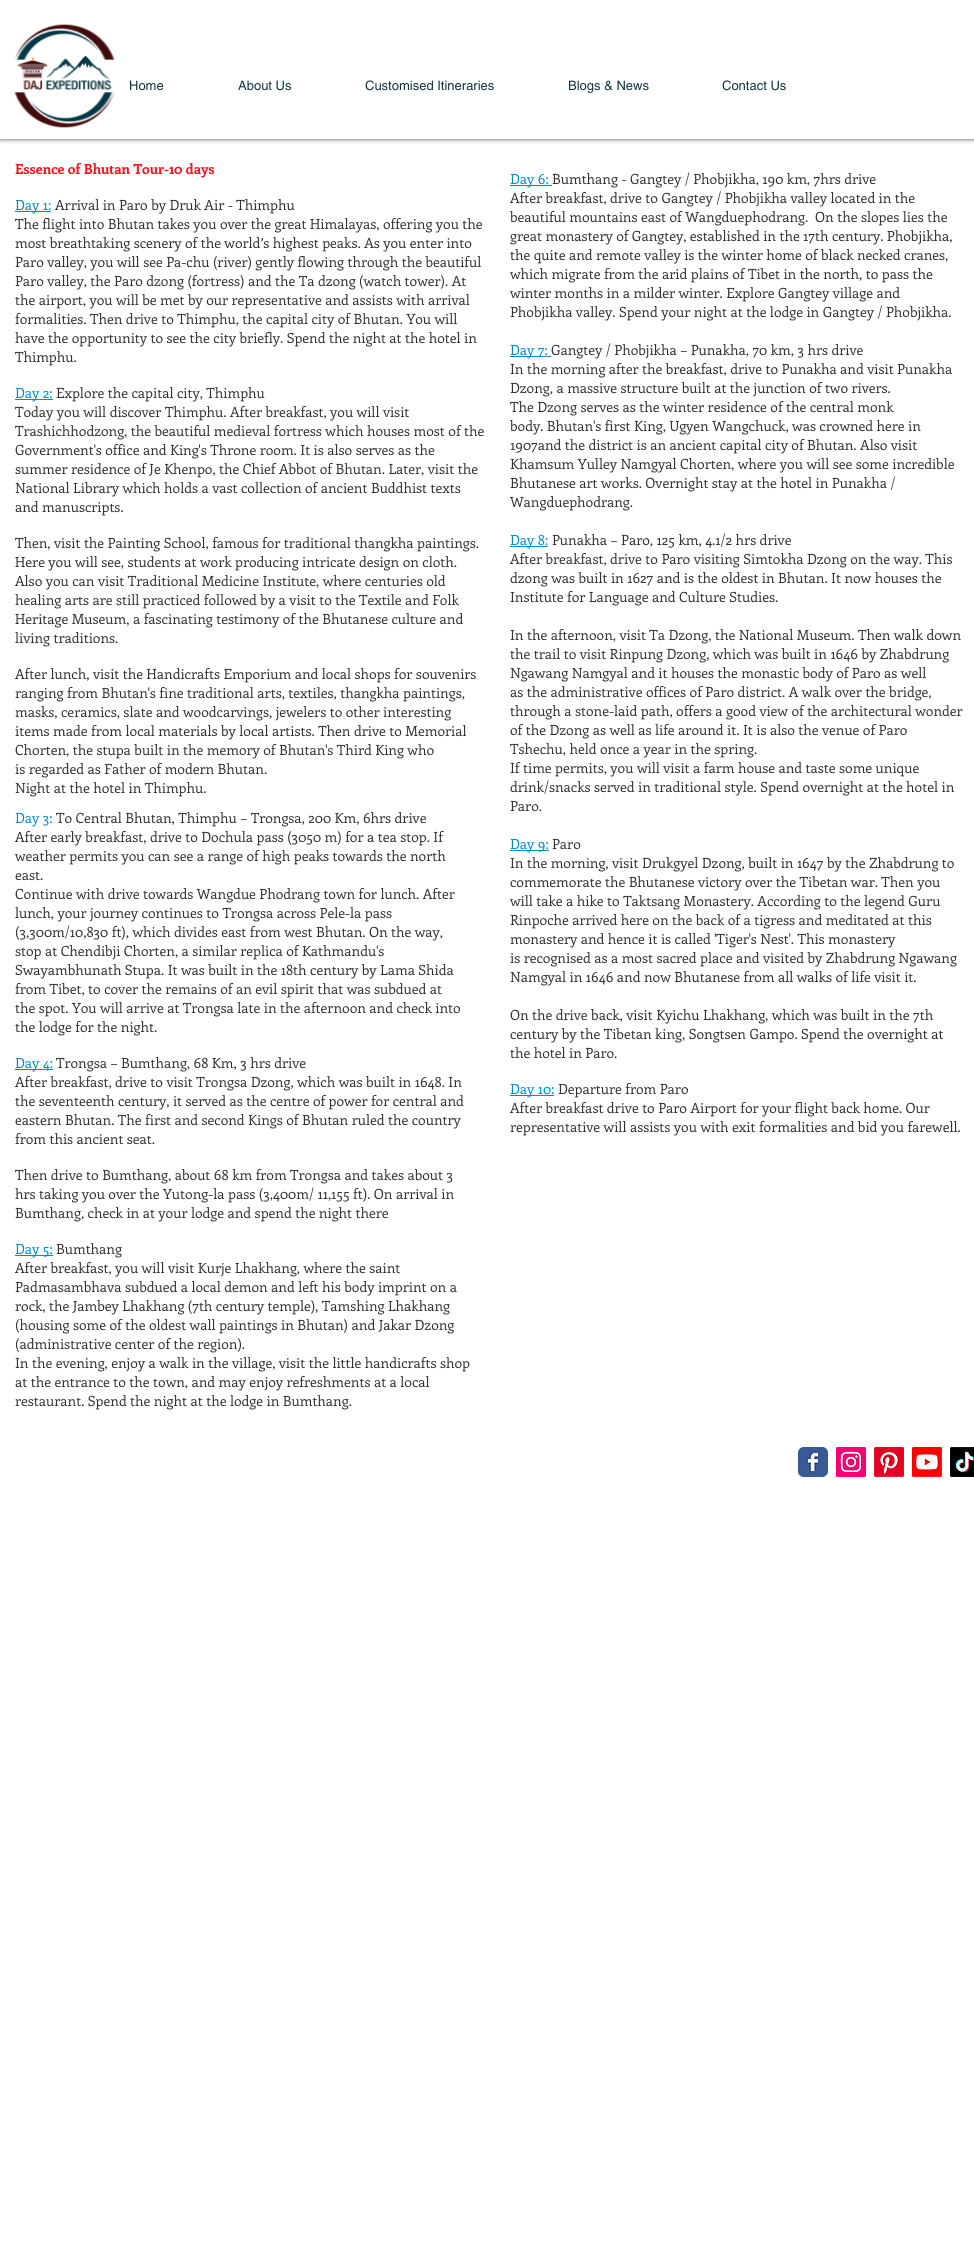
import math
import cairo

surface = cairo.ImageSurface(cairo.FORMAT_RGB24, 974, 2251)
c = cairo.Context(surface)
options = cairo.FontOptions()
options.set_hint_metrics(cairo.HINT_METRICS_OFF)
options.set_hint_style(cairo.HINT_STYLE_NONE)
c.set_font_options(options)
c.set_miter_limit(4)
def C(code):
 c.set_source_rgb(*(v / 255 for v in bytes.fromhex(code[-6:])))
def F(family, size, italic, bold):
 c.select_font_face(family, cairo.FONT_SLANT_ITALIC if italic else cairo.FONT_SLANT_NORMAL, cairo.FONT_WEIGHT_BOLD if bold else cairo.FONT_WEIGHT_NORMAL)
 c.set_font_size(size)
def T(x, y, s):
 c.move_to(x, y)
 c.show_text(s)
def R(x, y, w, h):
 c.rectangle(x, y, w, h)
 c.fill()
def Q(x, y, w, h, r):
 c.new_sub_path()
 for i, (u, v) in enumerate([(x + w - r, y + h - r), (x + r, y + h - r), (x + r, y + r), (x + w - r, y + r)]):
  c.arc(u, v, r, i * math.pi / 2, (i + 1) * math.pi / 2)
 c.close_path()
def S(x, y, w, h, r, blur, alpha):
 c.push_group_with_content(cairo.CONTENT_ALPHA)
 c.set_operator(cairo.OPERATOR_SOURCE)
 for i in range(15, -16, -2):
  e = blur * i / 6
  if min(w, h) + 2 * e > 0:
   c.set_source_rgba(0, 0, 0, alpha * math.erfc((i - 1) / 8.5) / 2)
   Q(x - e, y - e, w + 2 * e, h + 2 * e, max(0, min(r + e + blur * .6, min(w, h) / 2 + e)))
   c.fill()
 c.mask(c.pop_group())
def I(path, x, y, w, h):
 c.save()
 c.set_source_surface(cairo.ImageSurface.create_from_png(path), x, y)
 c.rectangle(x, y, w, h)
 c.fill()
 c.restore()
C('ffffff')
c.paint()
c.save()
c.rectangle(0,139,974,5)
c.clip()
C('000000')
S(0,0,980,139,0,2.5,.7)
c.restore()
I('1.png',14,23,101,105)
F('helvetica',13,0,0)
C('133443')
T(129,90,'Home')
T(238,90,'About Us')
T(365,90,'Customised Itineraries')
T(568,90,'Blogs & News')
T(722,90,'Contact Us')
F('Enriqueta',14,0,1)
C('ed1c24')
T(15,174,'Essence of Bhutan Tour-10 days')
C('0088cb')
R(15,211,36,1)
F('Enriqueta',14,0,0)
T(15,210,'Day 1:')
C('323232')
T(55,210,'Arrival in Paro by Druk Air - Thimphu')
T(15,229,'The flight into Bhutan takes you over the great Himalayas, offering you the')
T(15,248,'most breathtaking scenery of the world’s highest peaks. As you enter into')
T(15,267,'Paro valley, you will see Pa-chu (river) gently flowing through the beautiful')
T(15,286,'Paro valley, the Paro dzong (fortress) and the Ta dzong (watch tower). At')
T(15,305,'the airport, you will be met by our representative and assists with arrival')
T(15,324,'formalities. Then drive to Thimphu, the capital city of Bhutan. You will')
T(15,343,'have the opportunity to see the city briefly. Spend the night at the hotel in')
T(15,362,'Thimphu.')
C('0088cb')
R(15,399,38,1)
T(15,398,'Day 2:')
C('323232')
T(56,398,'Explore the capital city, Thimphu')
T(15,417,'Today you will discover Thimphu. After breakfast, you will visit')
T(15,436,'Trashichhodzong, the beautiful medieval fortress which houses most of the')
T(15,455,'Government\'s office and King\'s Throne room. It is also serves as the')
T(15,474,'summer residence of Je Khenpo, the Chief Abbot of Bhutan. Later, visit the')
T(15,493,'National Library which holds a vast collection of ancient Buddhist texts')
T(15,512,'and manuscripts.')
T(15,548,'Then, visit the Painting School, famous for traditional thangkha paintings.')
T(15,567,'Here you will see, students at work producing intricate design on cloth.')
T(15,586,'Also you can visit Traditional Medicine Institute, where centuries old')
T(15,605,'healing arts are still practiced followed by a visit to the Textile and Folk')
T(15,624,'Heritage Museum, a fascinating testimony of the Bhutanese culture and')
T(15,643,'living traditions.')
T(15,679,'After lunch, visit the Handicrafts Emporium and local shops for souvenirs')
T(15,698,'ranging from Bhutan\'s fine traditional arts, textiles, thangkha paintings,')
T(15,717,'masks, ceramics, slate and woodcarvings, jewelers to other interesting')
T(15,736,'items made from local materials by local artists. Then drive to Memorial')
T(15,755,'Chorten, the stupa built in the memory of Bhutan\'s Third King who')
T(15,774,'is regarded as Father of modern Bhutan.')
T(15,793,'Night at the hotel in Thimphu.')
C('0088cb')
R(510,185,42,1)
T(510,184,'Day 6:')
C('323232')
T(552,184,'Bumthang - Gangtey / Phobjikha, 190 km, 7hrs drive')
T(510,203,'After breakfast, drive to Gangtey / Phobjikha valley located in the')
T(510,222,'beautiful mountains east of Wangduephodrang.  On the slopes lies the')
T(510,241,'great monastery of Gangtey, established in the 17th century. Phobjikha,')
T(510,260,'the quite and remote valley is the winter home of black necked cranes,')
T(510,279,'which migrate from the arid plains of Tibet in the north, to pass the')
T(510,298,'winter months in a milder winter. Explore Gangtey village and')
T(510,317,'Phobjikha valley. Spend your night at the lodge in Gangtey / Phobjikha.')
C('0088cb')
R(510,356,41,1)
T(510,355,'Day 7:')
C('323232')
T(551,355,'Gangtey / Phobjikha – Punakha, 70 km, 3 hrs drive')
T(510,374,'In the morning after the breakfast, drive to Punakha and visit Punakha')
T(510,393,'Dzong, a massive structure built at the junction of two rivers.')
T(510,412,'The Dzong serves as the winter residence of the central monk')
T(510,431,'body. Bhutan\'s first King, Ugyen Wangchuck, was crowned here in')
T(510,450,'1907and the district is an ancient capital city of Bhutan. Also visit')
T(510,469,'Khamsum Yulley Namgyal Chorten, where you will see some incredible')
T(510,488,'Bhutanese art works. Overnight stay at the hotel in Punakha /')
T(510,507,'Wangduephodrang.')
C('0088cb')
R(510,546,38,1)
T(510,545,'Day 8:')
C('323232')
T(552,545,'Punakha – Paro, 125 km, 4.1/2 hrs drive')
T(510,564,'After breakfast, drive to Paro visiting Simtokha Dzong on the way. This')
T(510,583,'dzong was built in 1627 and is the oldest in Bhutan. It now houses the')
T(510,602,'Institute for Language and Culture Studies.')
T(510,640,'In the afternoon, visit Ta Dzong, the National Museum. Then walk down')
T(510,659,'the trail to visit Rinpung Dzong, which was built in 1646 by Zhabdrung')
T(510,678,'Ngawang Namgyal and it houses the monastic body of Paro as well')
T(510,697,'as the administrative offices of Paro district. A walk over the bridge,')
T(510,716,'through a stone-laid path, offers a good view of the architectural wonder')
T(510,735,'of the Dzong as well as life around it. It is also the venue of Paro')
T(510,754,'Tshechu, held once a year in the spring.')
T(510,773,'If time permits, you will visit a farm house and taste some unique')
T(510,792,'drink/snacks served in traditional style. Spend overnight at the hotel in')
T(510,811,'Paro.')
C('0088cb')
R(510,850,39,1)
T(510,849,'Day 9:')
C('323232')
T(552,849,'Paro')
T(510,868,'In the morning, visit Drukgyel Dzong, built in 1647 by the Zhabdrung to')
T(510,887,'commemorate the Bhutanese victory over the Tibetan war. Then you')
T(510,906,'will take a hike to Taktsang Monastery. According to the legend Guru')
T(510,925,'Rinpoche arrived here on the back of a tigress and meditated at this')
T(510,944,'monastery and hence it is called \'Tiger\'s Nest\'. This monastery')
T(510,963,'is recognised as a most sacred place and visited by Zhabdrung Ngawang')
T(510,982,'Namgyal in 1646 and now Bhutanese from all walks of life visit it.')
T(510,1020,'On the drive back, visit Kyichu Lhakhang, which was built in the 7th')
T(510,1039,'century by the Tibetan king, Songtsen Gampo. Spend the overnight at')
T(510,1058,'the hotel in Paro.')
C('0088cb')
R(510,1095,44,1)
T(510,1094,'Day 10:')
C('323232')
T(558,1094,'Departure from Paro')
T(510,1113,'After breakfast drive to Paro Airport for your flight back home. Our')
T(510,1132,'representative will assists you with exit formalities and bid you farewell.')
C('0088cb')
T(15,823,'Day 3:')
C('323232')
T(56,823,'To Central Bhutan, Thimphu – Trongsa, 200 Km, 6hrs drive')
T(15,842,'After early breakfast, drive to Dochula pass (3050 m) for a tea stop. If')
T(15,861,'weather permits you can see a range of high peaks towards the north')
T(15,880,'east.')
T(15,899,'Continue with drive towards Wangdue Phodrang town for lunch. After')
T(15,918,'lunch, your journey continues to Trongsa across Pele-la pass')
T(15,937,'(3,300m/10,830 ft), which divides east from west Bhutan. On the way,')
T(15,956,'stop at Chendibji Chorten, a similar replica of Kathmandu\'s')
T(15,975,'Swayambhunath Stupa. It was built in the 18th century by Lama Shida')
T(15,994,'from Tibet, to cover the remains of an evil spirit that was subdued at')
T(15,1013,'the spot. You will arrive at Trongsa late in the afternoon and check into')
T(15,1032,'the lodge for the night.')
C('0088cb')
R(15,1069,38,1)
T(15,1068,'Day 4:')
C('323232')
T(56,1068,'Trongsa – Bumthang, 68 Km, 3 hrs drive')
T(15,1087,'After breakfast, drive to visit Trongsa Dzong, which was built in 1648. In')
T(15,1106,'the seventeenth century, it served as the centre of power for central and')
T(15,1125,'eastern Bhutan. The first and second Kings of Bhutan ruled the country')
T(15,1144,'from this ancient seat.')
T(15,1180,'Then drive to Bumthang, about 68 km from Trongsa and takes about 3')
T(15,1199,'hrs taking you over the Yutong-la pass (3,400m/ 11,155 ft). On arrival in')
T(15,1218,'Bumthang, check in at your lodge and spend the night there')
C('0088cb')
R(15,1255,38,1)
T(15,1254,'Day 5:')
C('323232')
T(56,1254,'Bumthang')
T(15,1273,'After breakfast, you will visit Kurje Lhakhang, where the saint')
T(15,1292,'Padmasambhava subdued a local demon and left his body imprint on a')
T(15,1311,'rock, the Jambey Lhakhang (7th century temple), Tamshing Lhakhang')
T(15,1330,'(housing some of the oldest wall paintings in Bhutan) and Jakar Dzong')
T(15,1349,'(administrative center of the region).')
T(15,1368,'In the evening, enjoy a walk in the village, visit the little handicrafts shop')
T(15,1387,'at the entrance to the town, and may enjoy refreshments at a local')
T(15,1406,'restaurant. Spend the night at the lodge in Bumthang.')
I('2.png',798,1447,30,30)
I('3.png',836,1447,30,30)
I('4.png',874,1447,30,30)
I('5.png',912,1447,30,30)
I('6.png',950,1447,24,30)
surface.write_to_png('o.png')
